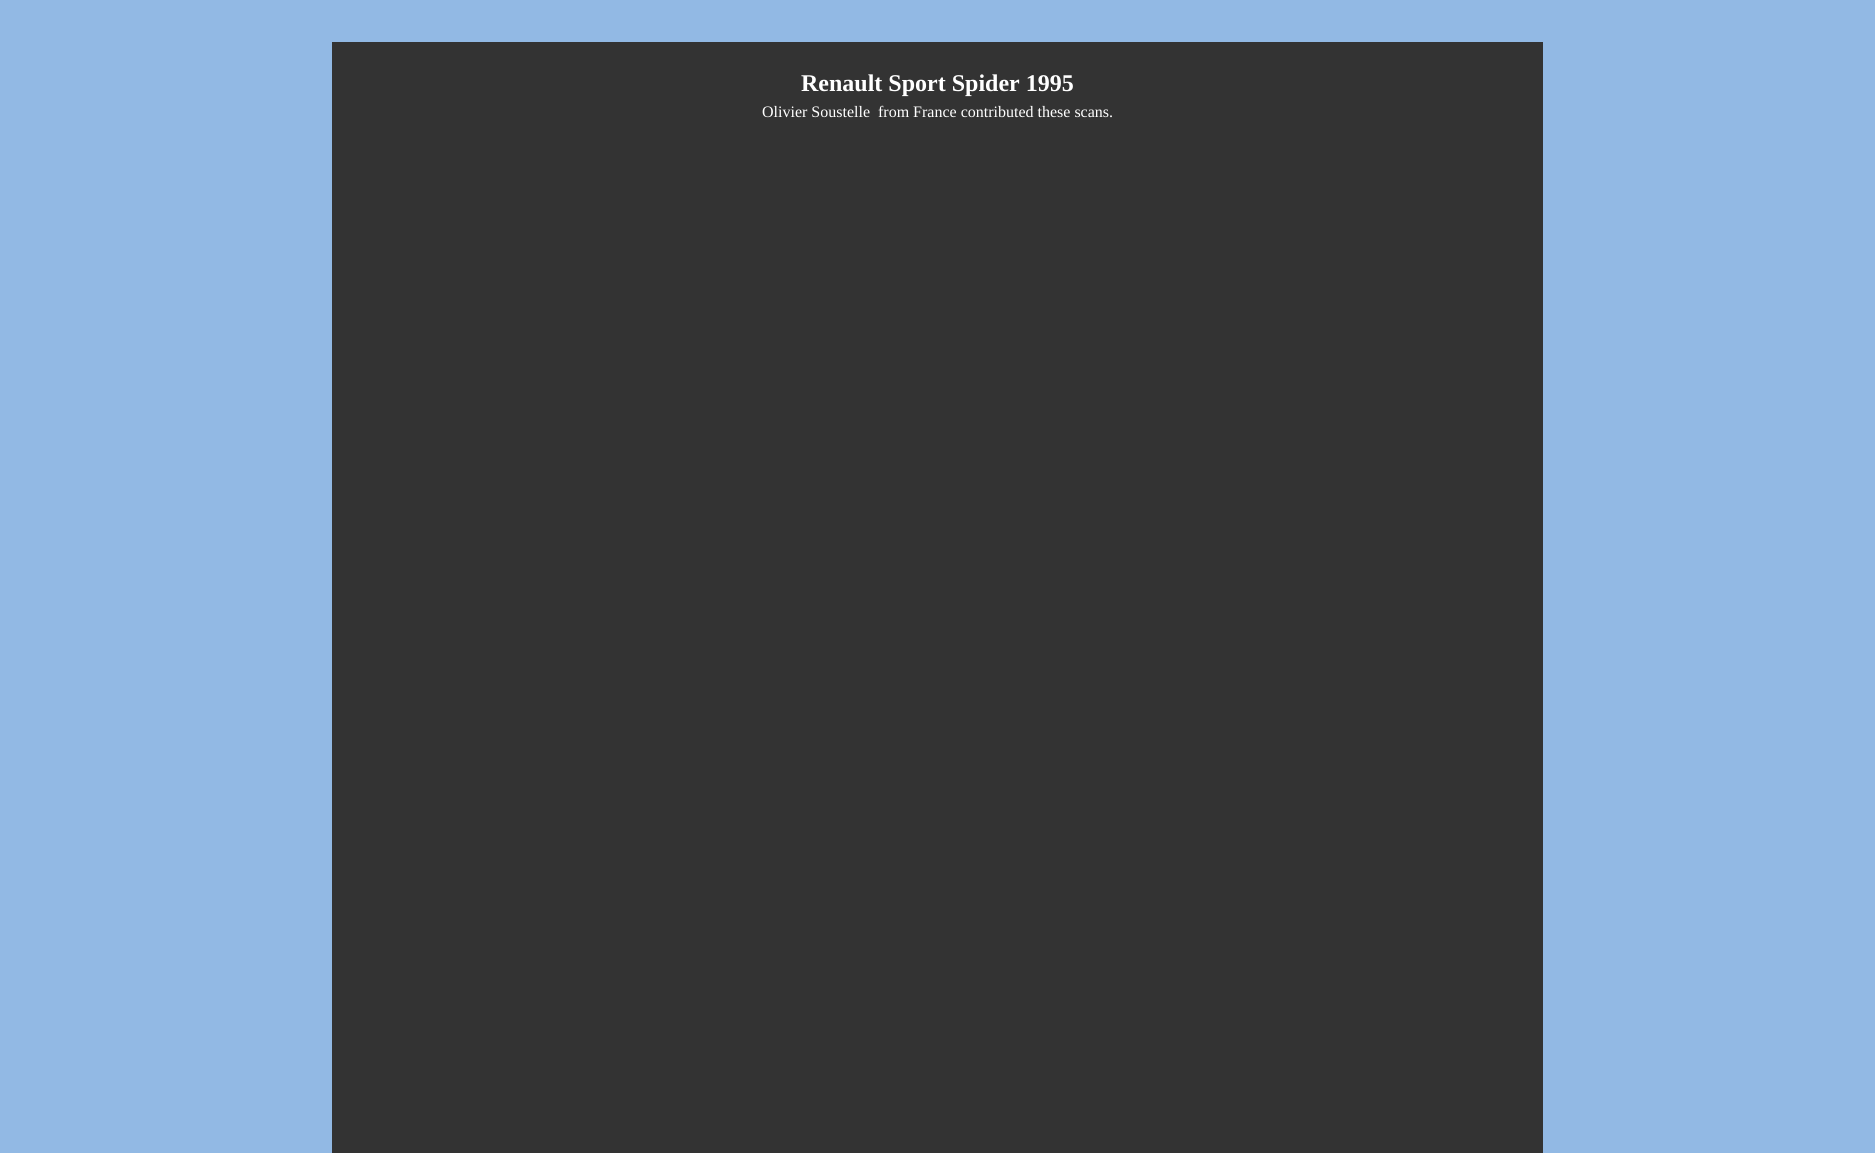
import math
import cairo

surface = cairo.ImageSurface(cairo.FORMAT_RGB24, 1875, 1153)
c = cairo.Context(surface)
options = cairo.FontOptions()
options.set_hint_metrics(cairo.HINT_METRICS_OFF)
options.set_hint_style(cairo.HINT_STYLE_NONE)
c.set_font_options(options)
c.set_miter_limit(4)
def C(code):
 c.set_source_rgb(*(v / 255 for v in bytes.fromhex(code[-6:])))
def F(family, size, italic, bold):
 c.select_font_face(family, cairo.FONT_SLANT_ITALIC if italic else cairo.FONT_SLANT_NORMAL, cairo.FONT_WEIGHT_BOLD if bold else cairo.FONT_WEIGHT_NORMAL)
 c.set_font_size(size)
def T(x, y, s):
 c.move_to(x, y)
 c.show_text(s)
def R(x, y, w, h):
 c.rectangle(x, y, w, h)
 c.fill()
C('92b9e4')
c.paint()
C('333333')
R(332,42,1211,1111)
F('Liberation Serif',24,0,1)
C('ffffff')
T(801,91,'Renault Sport Spider 1995')
F('Liberation Serif',16,0,0)
T(762,117,'Olivier Soustelle')
T(878,117,'from France contributed these scans.')
surface.write_to_png('o.png')
